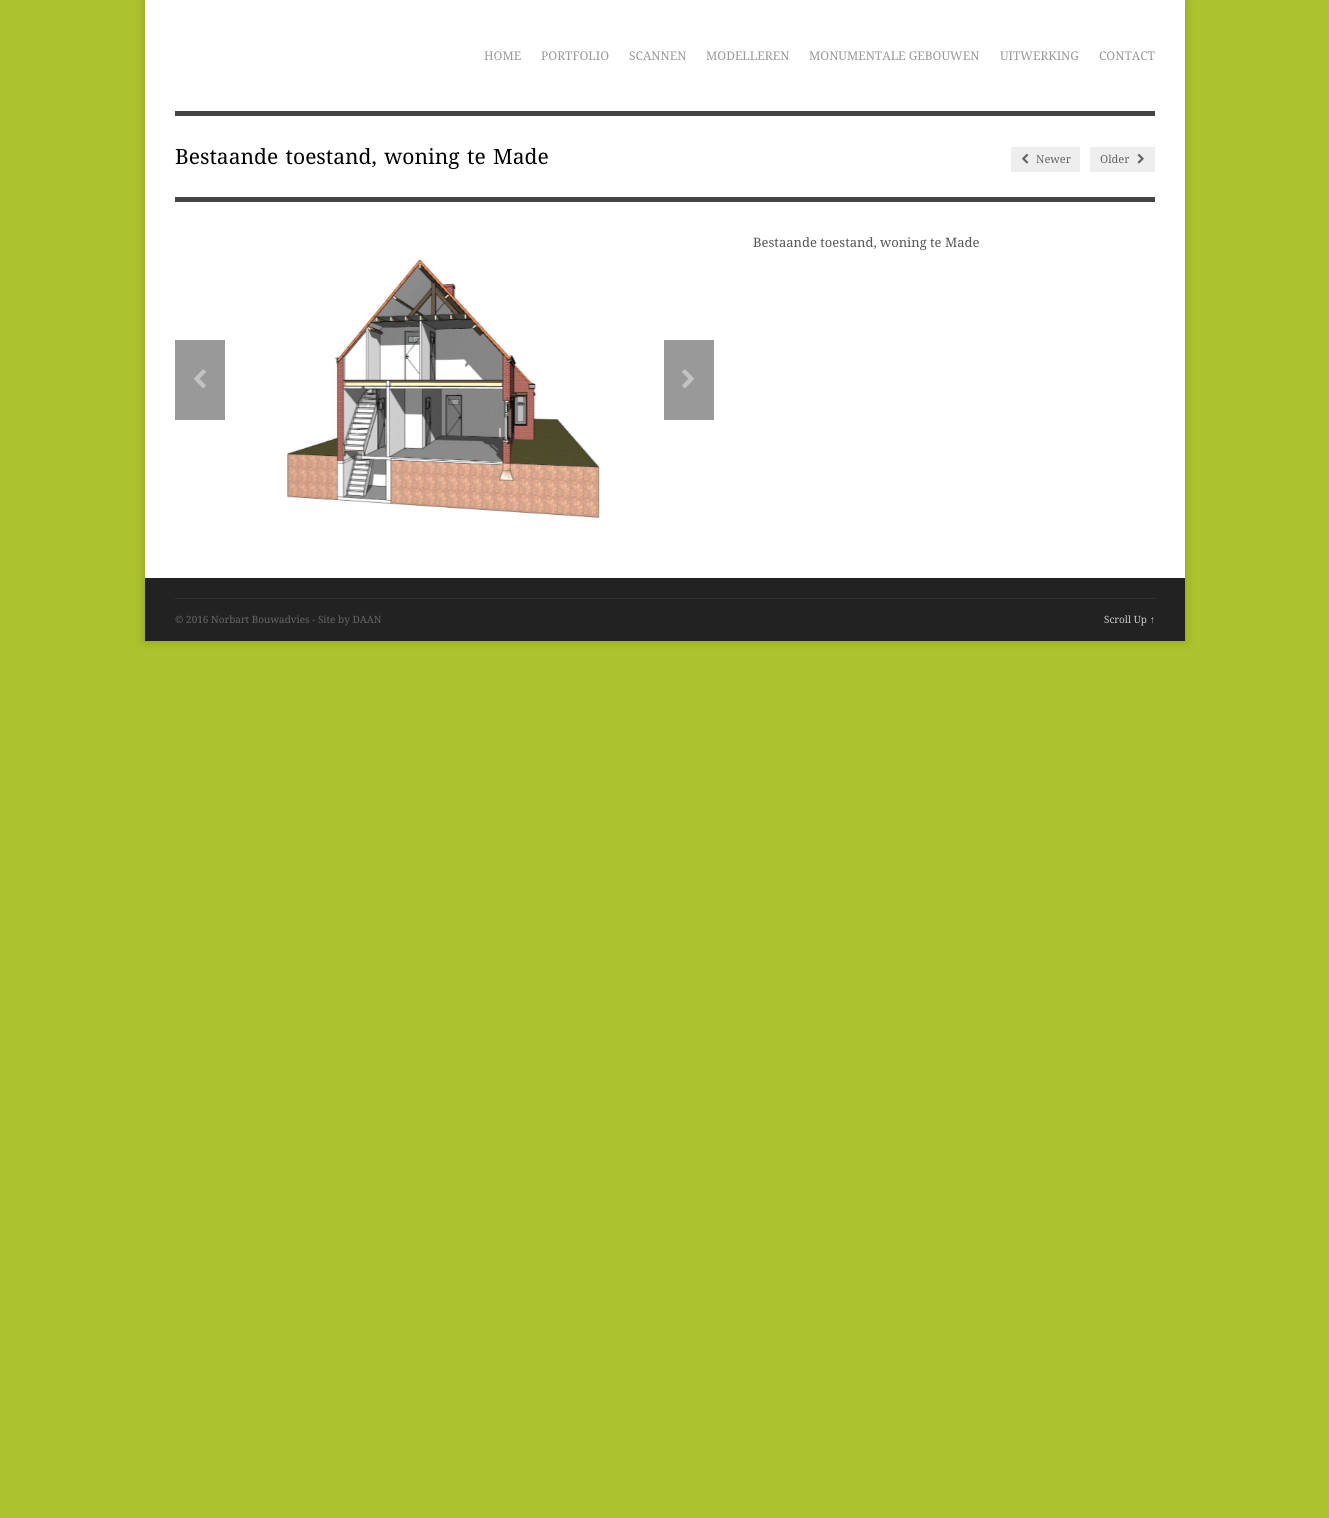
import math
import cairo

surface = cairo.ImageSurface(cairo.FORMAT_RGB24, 1329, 1518)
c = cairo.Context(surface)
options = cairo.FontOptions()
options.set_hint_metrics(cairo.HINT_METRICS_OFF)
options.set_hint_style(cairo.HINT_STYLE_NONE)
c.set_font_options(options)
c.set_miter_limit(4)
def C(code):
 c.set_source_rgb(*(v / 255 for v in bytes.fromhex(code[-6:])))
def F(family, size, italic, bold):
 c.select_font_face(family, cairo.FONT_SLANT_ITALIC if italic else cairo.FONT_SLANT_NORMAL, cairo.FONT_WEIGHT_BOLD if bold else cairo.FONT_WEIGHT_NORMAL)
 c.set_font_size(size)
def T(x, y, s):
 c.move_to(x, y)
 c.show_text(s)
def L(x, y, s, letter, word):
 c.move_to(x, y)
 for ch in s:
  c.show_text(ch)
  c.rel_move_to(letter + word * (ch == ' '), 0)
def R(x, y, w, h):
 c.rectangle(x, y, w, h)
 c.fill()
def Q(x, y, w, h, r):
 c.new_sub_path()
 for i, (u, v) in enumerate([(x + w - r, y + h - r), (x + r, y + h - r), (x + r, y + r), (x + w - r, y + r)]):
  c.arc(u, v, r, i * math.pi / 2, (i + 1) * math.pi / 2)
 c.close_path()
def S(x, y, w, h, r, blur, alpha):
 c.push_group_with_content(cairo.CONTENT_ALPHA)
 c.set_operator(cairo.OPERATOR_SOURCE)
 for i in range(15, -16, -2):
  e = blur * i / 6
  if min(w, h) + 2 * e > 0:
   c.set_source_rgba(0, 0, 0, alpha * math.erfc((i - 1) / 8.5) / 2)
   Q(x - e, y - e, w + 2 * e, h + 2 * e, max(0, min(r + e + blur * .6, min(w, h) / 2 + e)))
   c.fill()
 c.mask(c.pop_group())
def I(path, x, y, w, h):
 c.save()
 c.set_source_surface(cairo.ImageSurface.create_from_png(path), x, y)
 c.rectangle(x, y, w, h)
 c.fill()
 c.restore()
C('acc22e')
c.paint()
C('000000')
S(145,0,1040,641,0,5,.2)
C('ffffff')
R(145,0,1040,578)
C('444444')
R(175,111,980,5)
F('Droid Serif',12,0,0)
C('999999')
T(484,60,'HOME')
T(541,60,'PORTFOLIO')
T(629,60,'SCANNEN')
T(706,60,'MODELLEREN')
T(809,60,'MONUMENTALE GEBOUWEN')
T(1000,60,'UITWERKING')
T(1099,60,'CONTACT')
C('444444')
R(175,197,980,5)
F('Droid Serif',21,0,0)
C('000000')
L(175,164,'Bestaande toestand, woning te Made',0,2)
C('eeeeee')
R(1011,147,69,25)
I('1.png',1022,153,7,11)
F('Droid Serif',11,0,0)
C('666666')
T(1036,163,'Newer')
C('eeeeee')
R(1090,147,65,25)
C('666666')
T(1100,163,'Older')
I('2.png',1137,153,7,11)
F('Droid Serif',13,0,0)
C('555555')
T(753,247,'Bestaande toestand, woning te Made')
I('3.png',287,259,313,260)
C('999999')
R(175,340,50,80)
I('4.png',194,369,12,19)
R(664,340,50,80)
I('5.png',682,369,12,19)
C('222222')
R(145,578,1040,63)
C('333333')
R(175,598,980,1)
F('Droid Serif',10,0,0)
C('666666')
T(175,623,'© 2016 Norbart Bouwadvies - Site by DAAN')
C('cccccc')
T(1104,623,'Scroll Up')
F('Liberation Sans',10,0,0)
T(1150,623,'↑')
surface.write_to_png('o.png')
